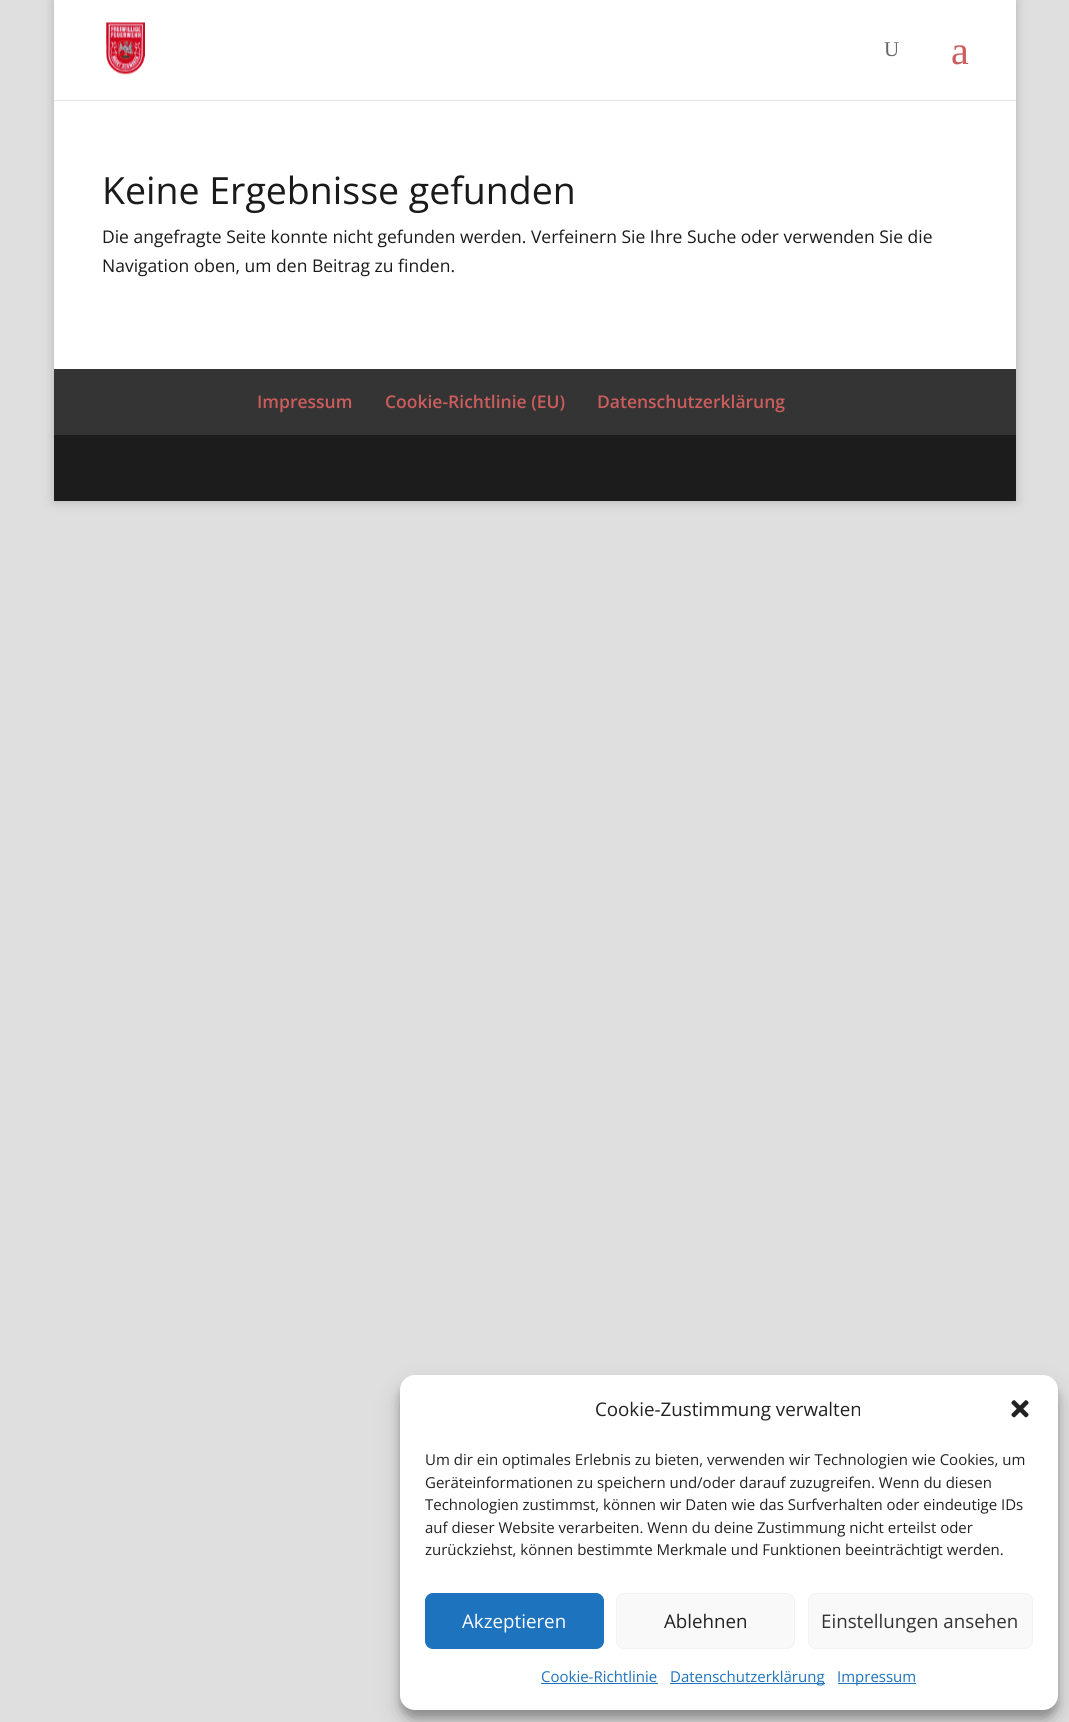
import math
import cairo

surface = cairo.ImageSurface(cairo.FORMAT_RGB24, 1069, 1722)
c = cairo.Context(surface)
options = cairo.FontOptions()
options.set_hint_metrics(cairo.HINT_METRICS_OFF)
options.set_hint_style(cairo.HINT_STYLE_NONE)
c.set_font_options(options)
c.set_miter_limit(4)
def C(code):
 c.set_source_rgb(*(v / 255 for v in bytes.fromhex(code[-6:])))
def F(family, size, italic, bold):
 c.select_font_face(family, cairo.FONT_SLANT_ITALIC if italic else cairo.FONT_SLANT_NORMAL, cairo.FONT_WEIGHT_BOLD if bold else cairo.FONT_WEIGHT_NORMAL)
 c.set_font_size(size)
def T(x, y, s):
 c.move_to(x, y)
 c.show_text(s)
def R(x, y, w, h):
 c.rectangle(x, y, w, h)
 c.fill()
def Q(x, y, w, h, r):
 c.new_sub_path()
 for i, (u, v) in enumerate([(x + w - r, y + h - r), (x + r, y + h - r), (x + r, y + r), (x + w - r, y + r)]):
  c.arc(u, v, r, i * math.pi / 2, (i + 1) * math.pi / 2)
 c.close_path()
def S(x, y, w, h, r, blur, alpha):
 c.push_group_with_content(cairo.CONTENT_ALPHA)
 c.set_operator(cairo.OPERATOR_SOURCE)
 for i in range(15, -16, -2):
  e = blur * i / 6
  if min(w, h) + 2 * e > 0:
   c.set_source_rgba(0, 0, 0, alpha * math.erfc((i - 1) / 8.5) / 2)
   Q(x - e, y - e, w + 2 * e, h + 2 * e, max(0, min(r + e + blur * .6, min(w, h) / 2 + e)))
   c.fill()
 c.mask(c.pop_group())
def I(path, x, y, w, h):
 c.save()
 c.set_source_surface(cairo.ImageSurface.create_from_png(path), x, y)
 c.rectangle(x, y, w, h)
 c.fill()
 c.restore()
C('dfdfdf')
c.paint()
C('000000')
S(54,0,962,501,0,6,.2)
C('e6e6e6')
R(54,100,962,1)
C('ffffff')
R(54,0,962,100)
I('1.png',106,22,39,53)
F('Liberation Serif',21,0,0)
C('666666')
T(884,56,'U')
F('Liberation Serif',40,0,0)
C('cd5c5c')
T(951,64,'a')
C('ffffff')
R(54,101,962,268)
F('Open Sans',37.5,0,0)
C('1a1a1a')
T(102,204,'Keine Ergebnisse gefunden')
F('Open Sans',17.5,0,0)
T(102,243,'Die angefragte Seite konnte nicht gefunden werden. Verfeinern Sie Ihre Suche oder verwenden Sie die')
T(102,272,'Navigation oben, um den Beitrag zu finden.')
C('343434')
R(54,369,962,66)
F('Open Sans SemiBold',17.5,0,0)
C('cd5c5c')
T(257,408,'Impressum')
T(385,408,'Cookie-Richtlinie (EU)')
T(597,408,'Datenschutzerklärung')
C('1c1c1c')
R(54,435,962,66)
C('000000')
S(400,1383,658,335,15,4,.23)
S(400,1388,658,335,15,12.5,.19)
C('ffffff')
Q(400,1375,658,335,15)
c.fill()
F('Open Sans',18.75,0,0)
C('222222')
T(595,1416,'Cookie-Zustimmung verwalten')
I('2.png',1011,1400,18,18)
F('Open Sans',15,0,0)
T(425,1465,'Um dir ein optimales Erlebnis zu bieten, verwenden wir Technologien wie Cookies, um')
T(425,1488,'Geräteinformationen zu speichern und/oder darauf zuzugreifen. Wenn du diesen')
T(425,1510,'Technologien zustimmst, können wir Daten wie das Surfverhalten oder eindeutige IDs')
T(425,1533,'auf dieser Website verarbeiten. Wenn du deine Zustimmung nicht erteilst oder')
T(425,1555,'zurückziehst, können bestimmte Merkmale und Funktionen beeinträchtigt werden.')
C('1e73be')
Q(425.5,1593.5,178,55,7.5)
c.fill_preserve()
c.set_line_width(1)
c.stroke()
F('Open Sans',18.75,0,0)
C('ffffff')
T(462,1628,'Akzeptieren')
C('f9f9f9')
Q(616.5,1593.5,178,55,7.5)
c.fill_preserve()
C('f2f2f2')
c.stroke()
C('222222')
T(664,1628,'Ablehnen')
C('f9f9f9')
Q(808.5,1593.5,224,55,7.5)
c.fill_preserve()
C('f2f2f2')
c.stroke()
C('333333')
T(821,1628,'Einstellungen ansehen')
F('Open Sans',15,0,0)
C('1e73be')
T(541,1682,'Cookie-Richtlinie')
R(541,1683,117,1)
R(670,1683,155,1)
T(670,1682,'Datenschutzerklärung')
R(838,1683,78,1)
T(837,1682,'Impressum')
surface.write_to_png('o.png')
